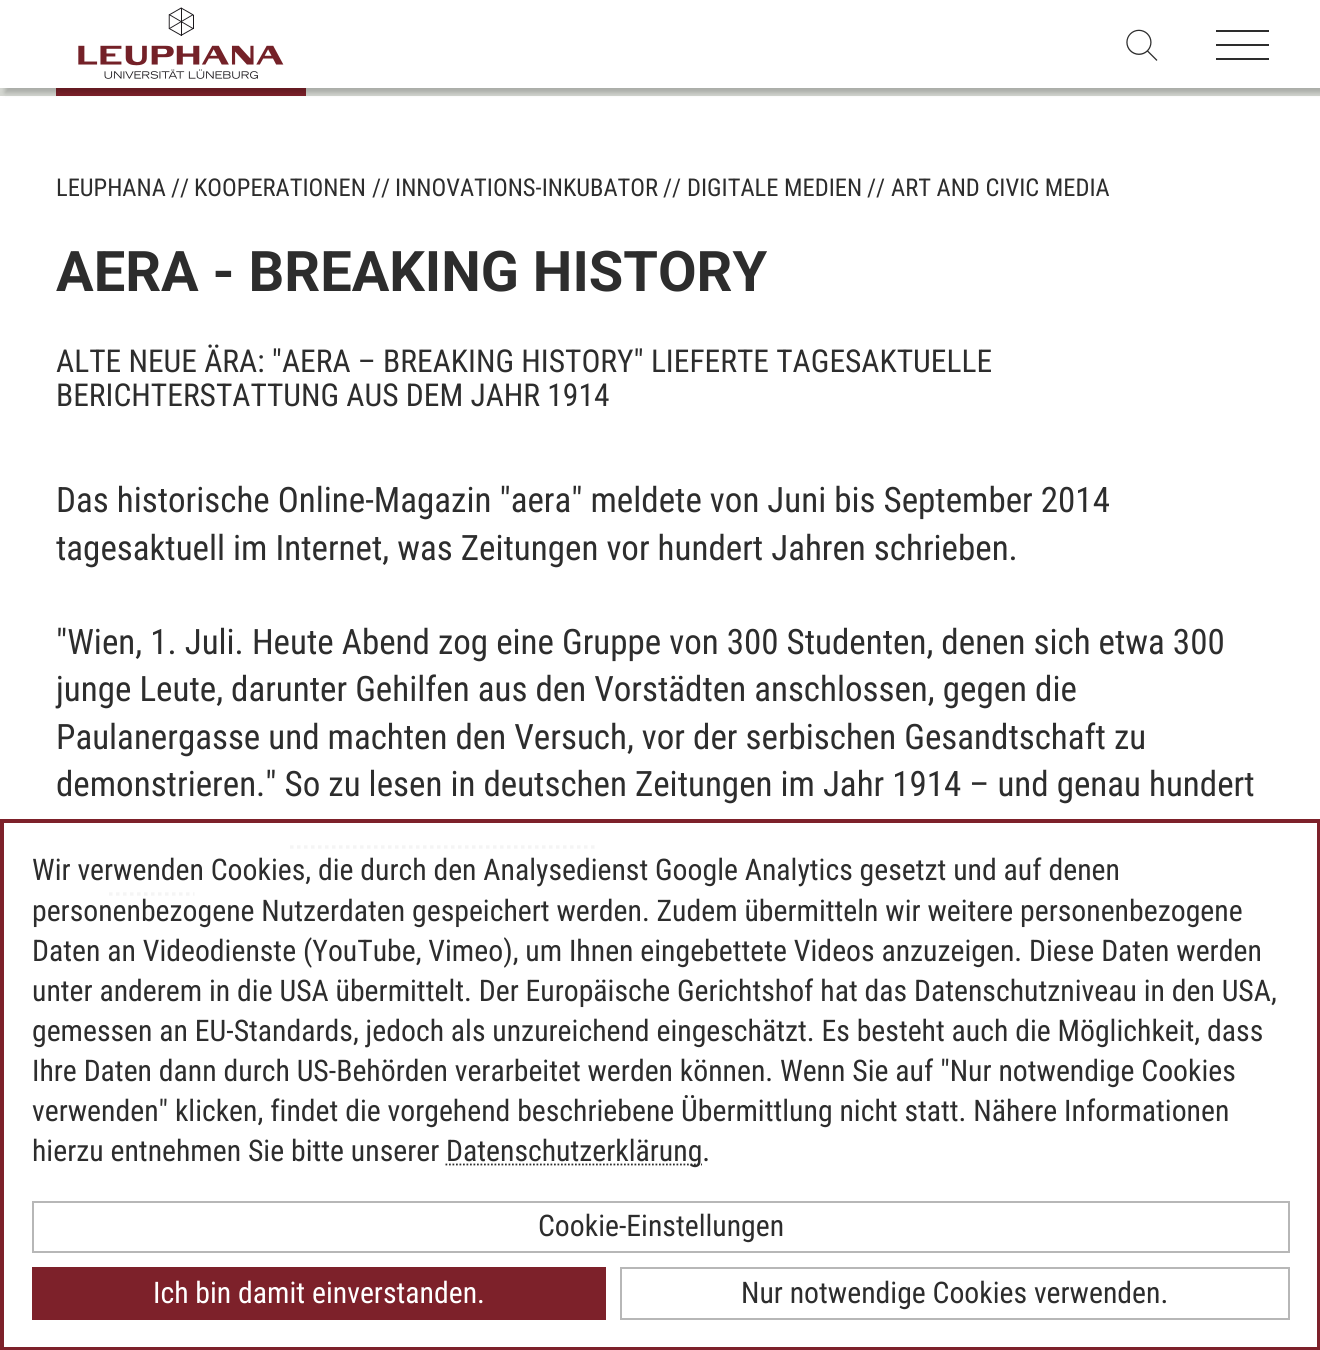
import math
import cairo

surface = cairo.ImageSurface(cairo.FORMAT_RGB24, 1320, 1350)
c = cairo.Context(surface)
options = cairo.FontOptions()
options.set_hint_metrics(cairo.HINT_METRICS_OFF)
options.set_hint_style(cairo.HINT_STYLE_NONE)
c.set_font_options(options)
c.set_miter_limit(4)
def C(code):
 c.set_source_rgb(*(v / 255 for v in bytes.fromhex(code[-6:])))
def F(family, size, italic, bold):
 c.select_font_face(family, cairo.FONT_SLANT_ITALIC if italic else cairo.FONT_SLANT_NORMAL, cairo.FONT_WEIGHT_BOLD if bold else cairo.FONT_WEIGHT_NORMAL)
 c.set_font_size(size)
def T(x, y, s):
 c.move_to(x, y)
 c.show_text(s)
def R(x, y, w, h):
 c.rectangle(x, y, w, h)
 c.fill()
def Q(x, y, w, h, r):
 c.new_sub_path()
 for i, (u, v) in enumerate([(x + w - r, y + h - r), (x + r, y + h - r), (x + r, y + r), (x + w - r, y + r)]):
  c.arc(u, v, r, i * math.pi / 2, (i + 1) * math.pi / 2)
 c.close_path()
def S(x, y, w, h, r, blur, alpha):
 c.push_group_with_content(cairo.CONTENT_ALPHA)
 c.set_operator(cairo.OPERATOR_SOURCE)
 for i in range(15, -16, -2):
  e = blur * i / 6
  if min(w, h) + 2 * e > 0:
   c.set_source_rgba(0, 0, 0, alpha * math.erfc((i - 1) / 8.5) / 2)
   Q(x - e, y - e, w + 2 * e, h + 2 * e, max(0, min(r + e + blur * .6, min(w, h) / 2 + e)))
   c.fill()
 c.mask(c.pop_group())
def I(path, x, y, w, h):
 c.save()
 c.set_source_surface(cairo.ImageSurface.create_from_png(path), x, y)
 c.rectangle(x, y, w, h)
 c.fill()
 c.restore()
C('d4d7d1')
c.paint()
C('ffffff')
R(0,0,1320,88)
I('1.png',78,7,206,72)
C('7d212a')
R(56,88,250,8)
I('2.png',1126,29,32,32)
C('2d2d2d')
R(1216,44,53,2)
R(1216,30,53,2)
R(1216,58,53,2)
C('ffffff')
R(0,96,1320,1251)
c.save()
c.set_fill_rule(cairo.FILL_RULE_EVEN_ODD)
c.new_path()
c.move_to(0,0)
c.line_to(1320,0)
c.line_to(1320,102)
c.line_to(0,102)
c.close_path()
c.move_to(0,-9)
c.line_to(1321,-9)
c.line_to(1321,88)
c.line_to(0,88)
c.close_path()
c.clip()
C('000000')
S(5,-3,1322,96,0,2.5,.2)
c.restore()
F('Roboto Condensed',24.5,0,0)
C('2d2d2d')
T(56,196,'LEUPHANA')
T(171,196,'//')
T(194,196,'KOOPERATIONEN')
T(372,196,'//')
T(395,196,'INNOVATIONS-INKUBATOR')
T(663,196,'//')
T(687,196,'DIGITALE MEDIEN')
T(867,196,'//')
T(891,196,'ART AND CIVIC MEDIA')
F('Roboto',56,0,1)
T(56,291,'AERA - BREAKING HISTORY')
F('Roboto Condensed',31.5,0,0)
T(56,372,'ALTE NEUE ÄRA: "AERA – BREAKING HISTORY" LIEFERTE TAGESAKTUELLE')
T(56,406,'BERICHTERSTATTUNG AUS DEM JAHR 1914')
F('Roboto Condensed',35,0,0)
T(56,512,'Das historische Online-Magazin "aera" meldete von Juni bis September 2014')
T(56,560,'tagesaktuell im Internet, was Zeitungen vor hundert Jahren schrieben.')
T(56,654,'"Wien, 1. Juli. Heute Abend zog eine Gruppe von 300 Studenten, denen sich etwa 300')
T(56,701,'junge Leute, darunter Gehilfen aus den Vorstädten anschlossen, gegen die')
T(56,749,'Paulanergasse und machten den Versuch, vor der serbischen Gesandtschaft zu')
T(56,796,'demonstrieren." So zu lesen in deutschen Zeitungen im Jahr 1914 – und genau hundert')
c.new_path()
c.move_to(290,847)
c.line_to(597,847)
c.set_line_width(3.5)
c.set_dash([3.5,3.5])
c.stroke()
c.new_path()
c.move_to(109,894)
c.line_to(194.5,894)
c.stroke()
c.set_source_rgba(1,1,1,0.95)
R(109,845,486,51)
c.rectangle(2,821,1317,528)
C('7d212a')
c.set_line_width(4)
c.set_dash([])
c.stroke()
F('Roboto Condensed',29.75,0,0)
C('2d2d2d')
T(32,880,'Wir verwenden Cookies, die durch den Analysedienst Google Analytics gesetzt und auf denen')
T(32,921,'personenbezogene Nutzerdaten gespeichert werden. Zudem übermitteln wir weitere personenbezogene')
T(32,961,'Daten an Videodienste (YouTube, Vimeo), um Ihnen eingebettete Videos anzuzeigen. Diese Daten werden')
T(32,1001,'unter anderem in die USA übermittelt. Der Europäische Gerichtshof hat das Datenschutzniveau in den USA,')
T(32,1041,'gemessen an EU-Standards, jedoch als unzureichend eingeschätzt. Es besteht auch die Möglichkeit, dass')
T(32,1081,'Ihre Daten dann durch US-Behörden verarbeitet werden können. Wenn Sie auf "Nur notwendige Cookies')
T(32,1121,'verwenden" klicken, findet die vorgehend beschriebene Übermittlung nicht statt. Nähere Informationen')
T(32,1161,'hierzu entnehmen Sie bitte unserer')
c.new_path()
c.move_to(445.5,1164.5)
c.line_to(702,1164.5)
c.set_line_width(1.8)
c.set_dash([1.75,1.75])
c.stroke()
T(446,1161,'Datenschutzerklärung.')
c.rectangle(33,1202,1256,50)
C('b7b7b7')
c.set_line_width(2)
c.set_dash([])
c.stroke()
C('2d2d2d')
T(538,1236,'Cookie-Einstellungen')
C('7d212a')
R(32,1267,574,53)
C('ffffff')
T(153,1303,'Ich bin damit einverstanden.')
c.rectangle(621,1268,668,51)
C('b7b7b7')
c.stroke()
C('2d2d2d')
T(741,1303,'Nur notwendige Cookies verwenden.')
surface.write_to_png('o.png')
